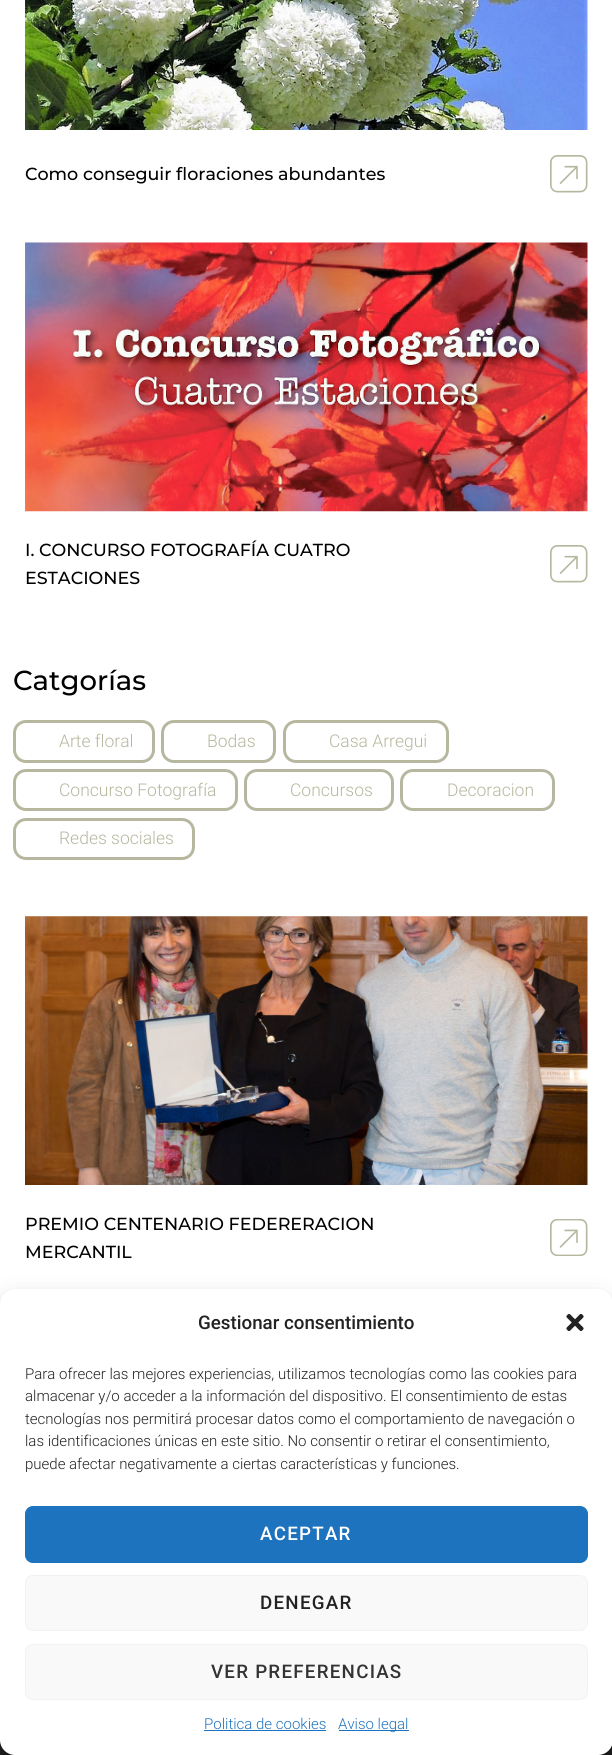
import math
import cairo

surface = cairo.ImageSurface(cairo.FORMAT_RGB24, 612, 1755)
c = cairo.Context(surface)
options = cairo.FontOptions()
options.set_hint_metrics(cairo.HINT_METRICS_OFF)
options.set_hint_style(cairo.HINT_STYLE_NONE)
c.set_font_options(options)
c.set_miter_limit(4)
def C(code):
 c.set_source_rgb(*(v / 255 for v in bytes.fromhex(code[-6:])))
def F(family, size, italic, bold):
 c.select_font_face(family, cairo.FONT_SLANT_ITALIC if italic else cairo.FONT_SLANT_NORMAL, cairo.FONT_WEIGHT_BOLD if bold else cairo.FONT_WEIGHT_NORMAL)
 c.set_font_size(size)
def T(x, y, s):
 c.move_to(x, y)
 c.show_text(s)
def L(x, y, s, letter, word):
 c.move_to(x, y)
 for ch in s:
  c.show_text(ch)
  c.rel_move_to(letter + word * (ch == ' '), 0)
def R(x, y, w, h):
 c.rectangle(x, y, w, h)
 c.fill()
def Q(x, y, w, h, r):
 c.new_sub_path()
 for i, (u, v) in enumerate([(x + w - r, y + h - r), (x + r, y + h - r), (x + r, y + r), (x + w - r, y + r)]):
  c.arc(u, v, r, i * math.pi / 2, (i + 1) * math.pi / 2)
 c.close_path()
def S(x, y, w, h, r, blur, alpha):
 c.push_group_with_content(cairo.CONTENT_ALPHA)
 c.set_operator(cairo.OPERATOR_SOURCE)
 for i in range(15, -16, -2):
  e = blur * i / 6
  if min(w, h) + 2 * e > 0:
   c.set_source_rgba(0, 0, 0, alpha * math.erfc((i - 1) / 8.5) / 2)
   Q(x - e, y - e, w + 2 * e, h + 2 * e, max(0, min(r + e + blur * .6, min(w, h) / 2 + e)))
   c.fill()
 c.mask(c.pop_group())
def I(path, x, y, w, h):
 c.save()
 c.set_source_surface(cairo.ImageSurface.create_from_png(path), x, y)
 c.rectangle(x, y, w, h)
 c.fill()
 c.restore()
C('ffffff')
c.paint()
I('1.png',25,0,563,130)
F('Montserrat Medium',17.5,0,0)
C('000000')
T(25,180,'Como conseguir floraciones abundantes')
I('2.png',550,155,38,38)
I('3.png',25,242,563,270)
T(25,556,'I. CONCURSO FOTOGRAFÍA CUATRO')
T(25,584,'ESTACIONES')
I('2.png',550,545,38,38)
F('Montserrat Medium',27.5,0,0)
T(13,690,'Catgorías')
Q(14.5,721.5,139,40,11.5)
C('b7b79f')
c.set_line_width(3)
c.stroke()
F('Roboto Light',17.5,0,0)
T(59,747,'Arte floral')
Q(162.5,721.5,112,40,11.5)
c.stroke()
T(207,747,'Bodas')
Q(284.5,721.5,163,40,11.5)
c.stroke()
T(329,747,'Casa Arregui')
Q(14.5,770.5,222,39,11.5)
c.stroke()
T(59,796,'Concurso Fotografía')
Q(245.5,770.5,147,39,11.5)
c.stroke()
T(290,796,'Concursos')
Q(401.5,770.5,152,39,11.5)
c.stroke()
T(447,796,'Decoracion')
Q(14.5,819.5,179,39,11.5)
c.stroke()
T(59,844,'Redes sociales')
I('4.png',25,916,563,269)
F('Montserrat Medium',17.5,0,0)
C('000000')
T(25,1230,'PREMIO CENTENARIO FEDERERACION')
T(25,1258,'MERCANTIL')
I('5.png',550,1219,38,37)
C('222222')
R(0,1740,612,15)
C('000000')
S(0,1296,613,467,15,4,.23)
S(0,1301,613,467,15,12.5,.19)
C('ffffff')
Q(0,1289,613,466,15)
c.fill()
F('Roboto Medium',18.75,0,0)
C('222222')
T(198,1329,'Gestionar consentimiento')
I('6.png',566,1313,18,18)
F('Roboto Light',15,0,0)
T(25,1379,'Para ofrecer las mejores experiencias, utilizamos tecnologías como las cookies para')
T(25,1401,'almacenar y/o acceder a la información del dispositivo. El consentimiento de estas')
T(25,1424,'tecnologías nos permitirá procesar datos como el comportamiento de navegación o')
T(25,1446,'las identificaciones únicas en este sitio. No consentir o retirar el consentimiento,')
T(25,1469,'puede afectar negativamente a ciertas características y funciones.')
C('1e73be')
Q(25.5,1506.5,562,56,7.5)
c.fill_preserve()
c.set_line_width(1)
c.stroke()
F('Roboto Medium',18.75,0,0)
C('ffffff')
L(260,1540,'ACEPTAR',1.25,0)
C('f9f9f9')
Q(25.5,1575.5,562,55,7.5)
c.fill_preserve()
C('f2f2f2')
c.stroke()
C('222222')
L(260,1609,'DENEGAR',1.25,0)
C('f9f9f9')
Q(25.5,1644.5,562,55,7.5)
c.fill_preserve()
C('f2f2f2')
c.stroke()
C('333333')
L(211,1678,'VER PREFERENCIAS',1.25,0)
F('Roboto Light',15,0,0)
C('1e73be')
T(204,1729,'Politica de cookies')
R(204,1730,122,1)
R(339,1730,70,1)
T(338,1729,'Aviso legal')
surface.write_to_png('o.png')
